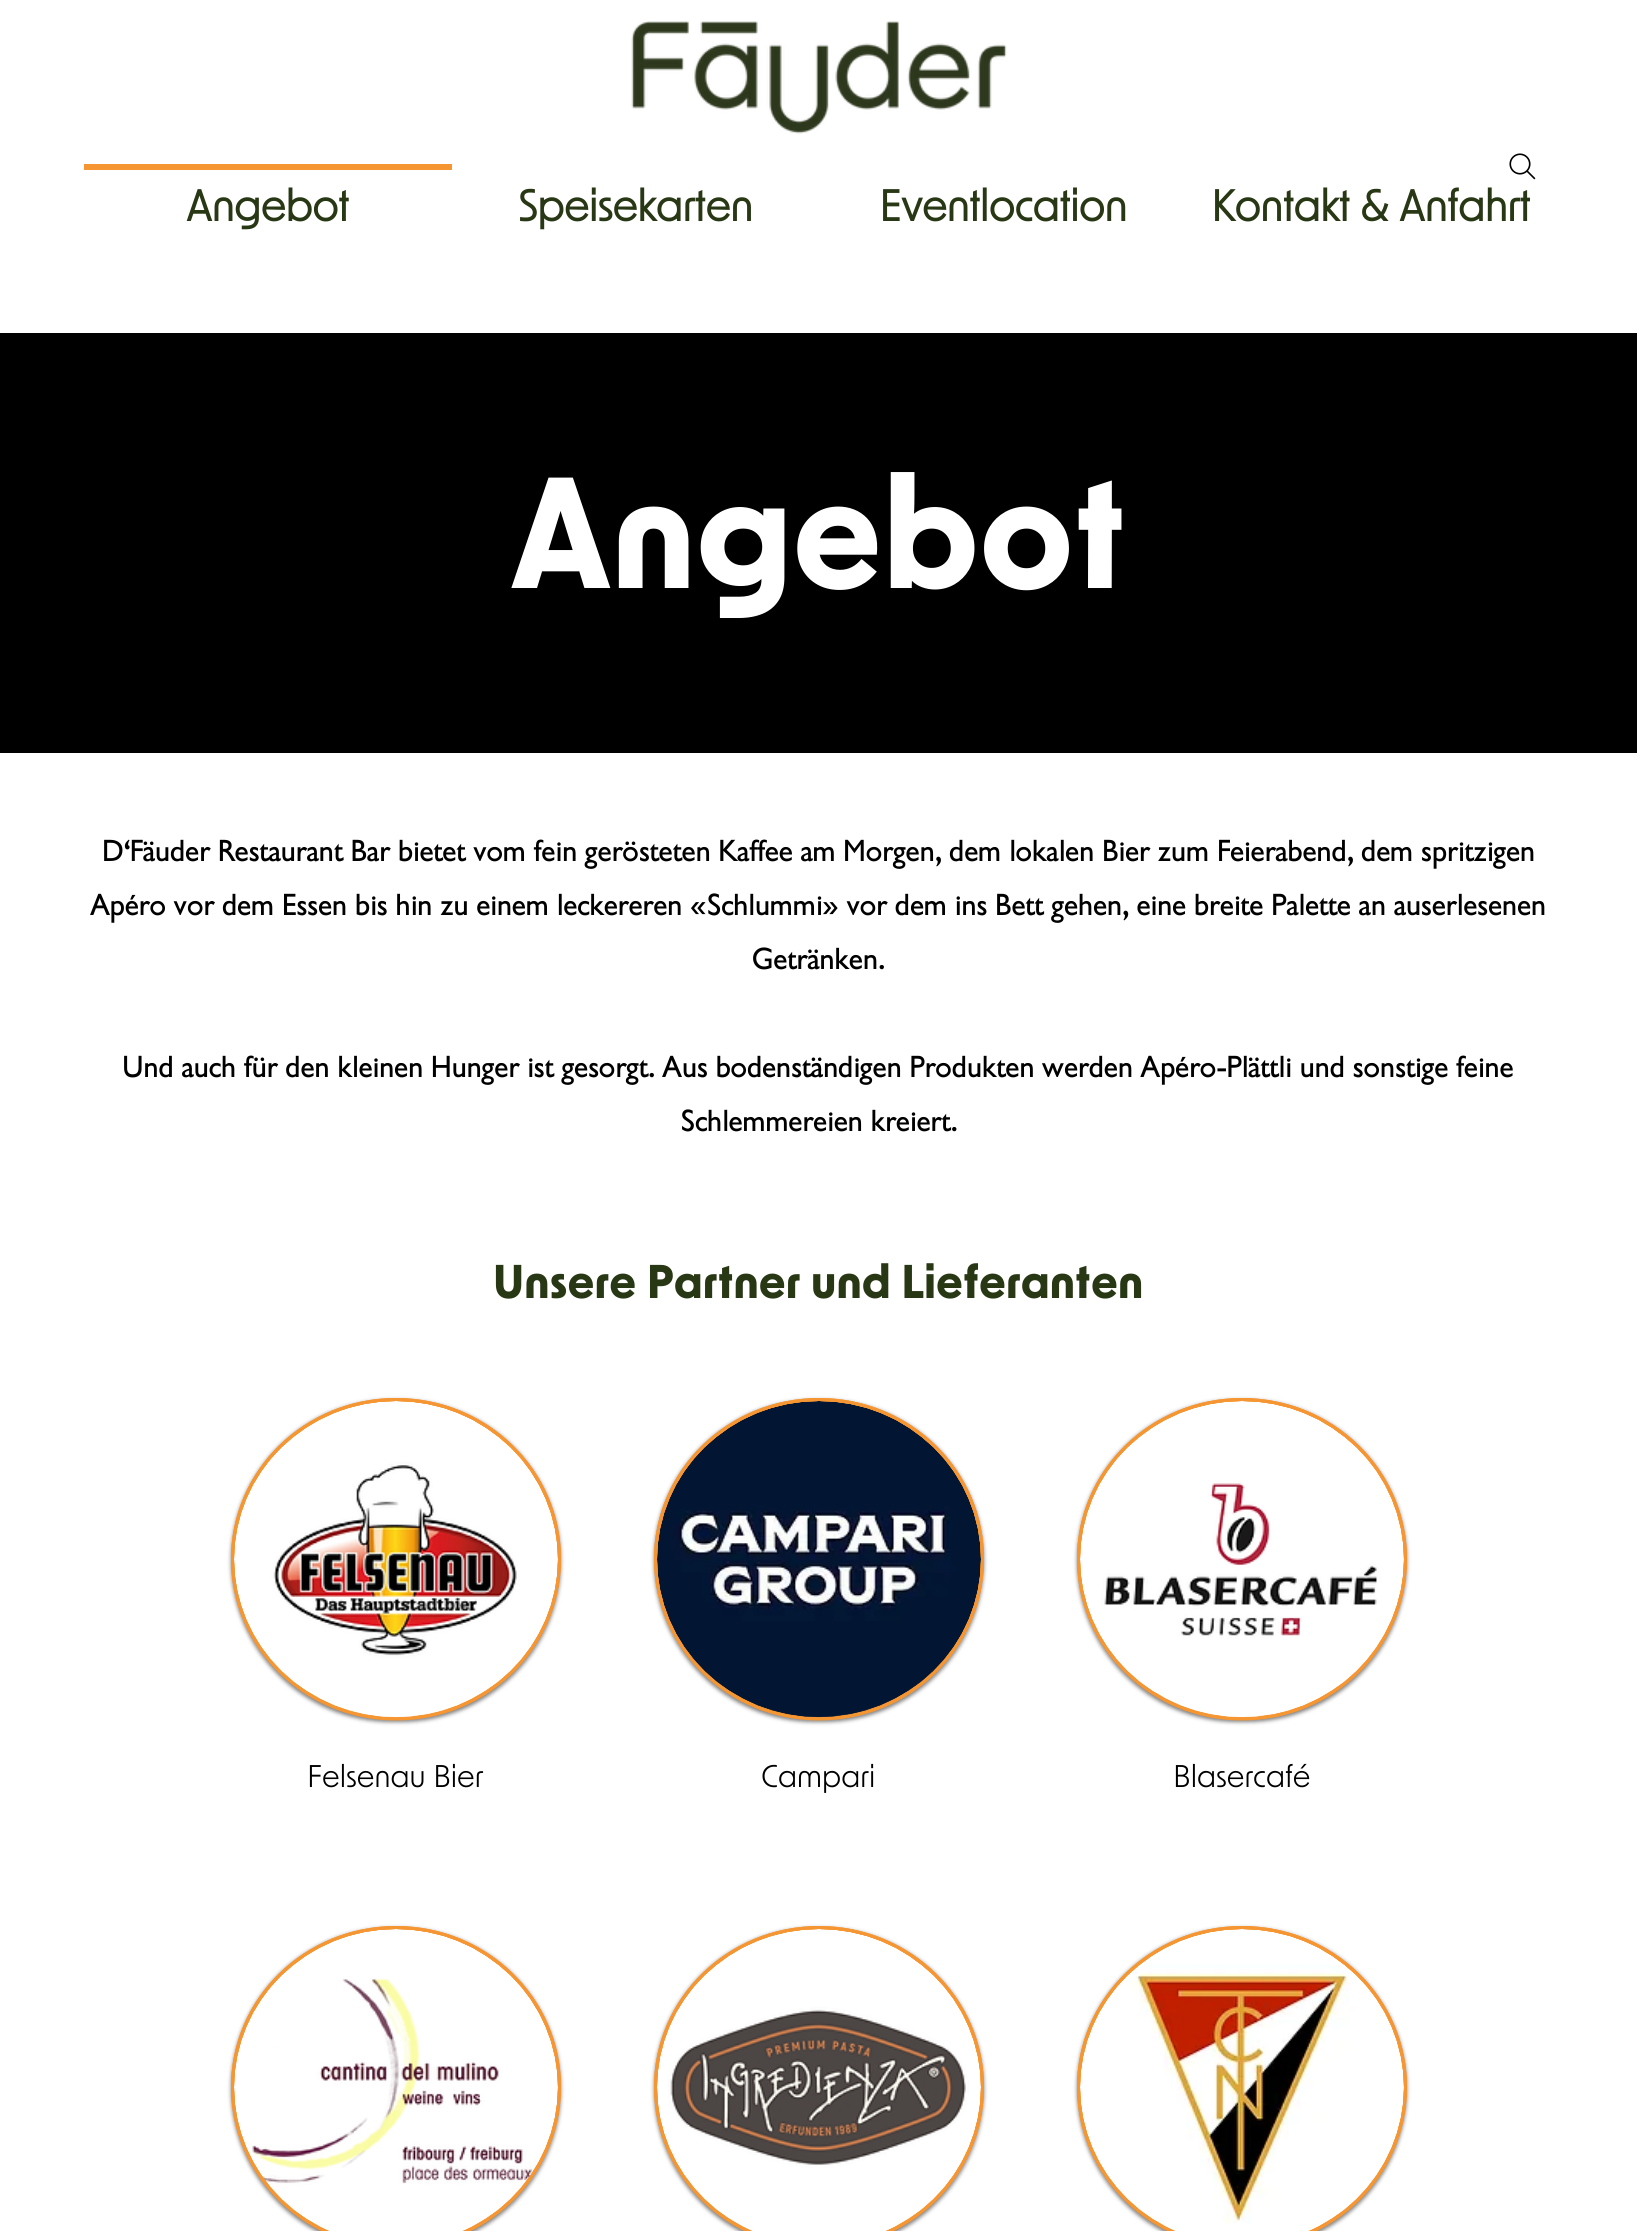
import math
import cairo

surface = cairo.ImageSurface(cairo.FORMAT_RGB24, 1637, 2231)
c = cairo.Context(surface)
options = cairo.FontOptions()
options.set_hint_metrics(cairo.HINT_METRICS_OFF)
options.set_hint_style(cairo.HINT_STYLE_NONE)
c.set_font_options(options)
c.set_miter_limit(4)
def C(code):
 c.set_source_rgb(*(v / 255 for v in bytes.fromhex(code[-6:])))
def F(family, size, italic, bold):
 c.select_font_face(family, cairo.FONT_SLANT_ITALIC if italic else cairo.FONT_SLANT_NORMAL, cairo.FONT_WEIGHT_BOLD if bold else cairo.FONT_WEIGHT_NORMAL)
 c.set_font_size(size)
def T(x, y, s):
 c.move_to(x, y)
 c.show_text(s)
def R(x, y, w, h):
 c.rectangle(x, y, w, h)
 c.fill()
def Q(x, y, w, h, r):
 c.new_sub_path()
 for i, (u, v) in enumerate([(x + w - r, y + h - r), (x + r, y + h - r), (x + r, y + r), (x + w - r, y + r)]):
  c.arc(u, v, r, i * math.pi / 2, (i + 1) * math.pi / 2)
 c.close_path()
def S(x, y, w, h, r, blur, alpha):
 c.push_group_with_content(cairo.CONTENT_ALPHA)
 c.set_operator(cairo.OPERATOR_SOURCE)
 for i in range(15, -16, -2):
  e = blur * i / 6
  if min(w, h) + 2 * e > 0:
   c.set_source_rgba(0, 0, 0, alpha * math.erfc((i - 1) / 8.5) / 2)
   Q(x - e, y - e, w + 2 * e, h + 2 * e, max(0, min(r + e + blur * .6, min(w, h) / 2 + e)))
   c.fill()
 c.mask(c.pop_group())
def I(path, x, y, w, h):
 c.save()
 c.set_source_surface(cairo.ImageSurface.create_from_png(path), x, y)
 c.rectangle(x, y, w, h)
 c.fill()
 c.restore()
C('ffffff')
c.paint()
I('1.png',1509,153,27,27)
I('2.png',631,21,376,113)
C('f59632')
R(84,164,368,6)
F('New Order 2',42,0,1)
C('283714')
T(186,221,'Angebot')
T(518,221,'Speisekarten')
T(879,221,'Eventlocation')
T(1211,221,'Kontakt & Anfahrt')
C('000000')
R(0,333,1637,420)
F('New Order',150,0,1)
C('ffffff')
T(510,588,'Angebot')
F('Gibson',30,0,0)
C('000000')
T(103,861,'D\'Fäuder Restaurant Bar bietet vom fein gerösteten Kaffee am Morgen, dem lokalen Bier zum Feierabend, dem spritzigen')
T(91,915,'Apéro vor dem Essen bis hin zu einem leckereren «Schlummi» vor dem ins Bett gehen, eine breite Palette an auserlesenen')
T(753,969,'Getränken.')
T(123,1077,'Und auch für den kleinen Hunger ist gesorgt. Aus bodenständigen Produkten werden Apéro-Plättli und sonstige feine')
T(681,1131,'Schlemmereien kreiert.')
F('New Order',45,0,1)
C('283714')
T(493,1298,'Unsere Partner und Lieferanten')
C('000000')
S(231,1400,330,322,161,2,.5)
C('f59632')
c.new_path()
c.move_to(396,1398)
c.curve_to(487,1398,561,1470,561,1559)
c.curve_to(561,1648,487,1720,396,1720)
c.curve_to(305,1720,231,1648,231,1559)
c.curve_to(231,1470,305,1398,396,1398)
c.close_path()
c.fill()
c.new_path()
c.move_to(396,1399.5)
c.curve_to(486.5,1399.5,559.5,1471,559.5,1559)
c.curve_to(559.5,1647.5,486.5,1719,396,1719)
c.curve_to(305.5,1719,232.5,1647.5,232.5,1559)
c.curve_to(232.5,1471,305.5,1399.5,396,1399.5)
c.close_path()
c.set_line_width(3)
c.stroke()
I('3.png',234,1401,324,317)
F('New Order',30,0,0)
C('000000')
T(307,1787,'Felsenau Bier')
C('000000')
S(231,1928,330,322,161,2,.5)
C('f59632')
c.new_path()
c.move_to(396,1926)
c.curve_to(487,1926,561,1998,561,2087)
c.curve_to(561,2176,487,2248,396,2248)
c.curve_to(305,2248,231,2176,231,2087)
c.curve_to(231,1998,305,1926,396,1926)
c.close_path()
c.fill()
c.new_path()
c.move_to(396,1927.5)
c.curve_to(486.5,1927.5,559.5,1999,559.5,2087)
c.curve_to(559.5,2175.5,486.5,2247,396,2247)
c.curve_to(305.5,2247,232.5,2175.5,232.5,2087)
c.curve_to(232.5,1999,305.5,1927.5,396,1927.5)
c.close_path()
c.stroke()
I('4.png',234,1929,324,302)
C('000000')
S(654,1400,330,322,161,2,.5)
C('f59632')
c.new_path()
c.move_to(819,1398)
c.curve_to(910,1398,984,1470,984,1559)
c.curve_to(984,1648,910,1720,819,1720)
c.curve_to(728,1720,654,1648,654,1559)
c.curve_to(654,1470,728,1398,819,1398)
c.close_path()
c.fill()
c.new_path()
c.move_to(819,1399.5)
c.curve_to(909.5,1399.5,982.5,1471,982.5,1559)
c.curve_to(982.5,1647.5,909.5,1719,819,1719)
c.curve_to(728.5,1719,655.5,1647.5,655.5,1559)
c.curve_to(655.5,1471,728.5,1399.5,819,1399.5)
c.close_path()
c.stroke()
I('5.png',657,1401,324,317)
C('000000')
T(761,1787,'Campari')
C('000000')
S(654,1928,330,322,161,2,.5)
C('f59632')
c.new_path()
c.move_to(819,1926)
c.curve_to(910,1926,984,1998,984,2087)
c.curve_to(984,2176,910,2248,819,2248)
c.curve_to(728,2248,654,2176,654,2087)
c.curve_to(654,1998,728,1926,819,1926)
c.close_path()
c.fill()
c.new_path()
c.move_to(819,1927.5)
c.curve_to(909.5,1927.5,982.5,1999,982.5,2087)
c.curve_to(982.5,2175.5,909.5,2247,819,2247)
c.curve_to(728.5,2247,655.5,2175.5,655.5,2087)
c.curve_to(655.5,1999,728.5,1927.5,819,1927.5)
c.close_path()
c.stroke()
I('6.png',657,1929,324,302)
C('000000')
S(1077,1400,330,322,161,2,.5)
C('f59632')
c.new_path()
c.move_to(1242,1398)
c.curve_to(1333,1398,1407,1470,1407,1559)
c.curve_to(1407,1648,1333,1720,1242,1720)
c.curve_to(1151,1720,1077,1648,1077,1559)
c.curve_to(1077,1470,1151,1398,1242,1398)
c.close_path()
c.fill()
c.new_path()
c.move_to(1242,1399.5)
c.curve_to(1332.5,1399.5,1405.5,1471,1405.5,1559)
c.curve_to(1405.5,1647.5,1332.5,1719,1242,1719)
c.curve_to(1151.5,1719,1078.5,1647.5,1078.5,1559)
c.curve_to(1078.5,1471,1151.5,1399.5,1242,1399.5)
c.close_path()
c.stroke()
I('7.png',1080,1401,324,317)
C('000000')
T(1173,1787,'Blasercafé')
C('000000')
S(1077,1928,330,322,161,2,.5)
C('f59632')
c.new_path()
c.move_to(1242,1926)
c.curve_to(1333,1926,1407,1998,1407,2087)
c.curve_to(1407,2176,1333,2248,1242,2248)
c.curve_to(1151,2248,1077,2176,1077,2087)
c.curve_to(1077,1998,1151,1926,1242,1926)
c.close_path()
c.fill()
c.new_path()
c.move_to(1242,1927.5)
c.curve_to(1332.5,1927.5,1405.5,1999,1405.5,2087)
c.curve_to(1405.5,2175.5,1332.5,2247,1242,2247)
c.curve_to(1151.5,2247,1078.5,2175.5,1078.5,2087)
c.curve_to(1078.5,1999,1151.5,1927.5,1242,1927.5)
c.close_path()
c.stroke()
I('8.png',1080,1929,324,302)
surface.write_to_png('o.png')
